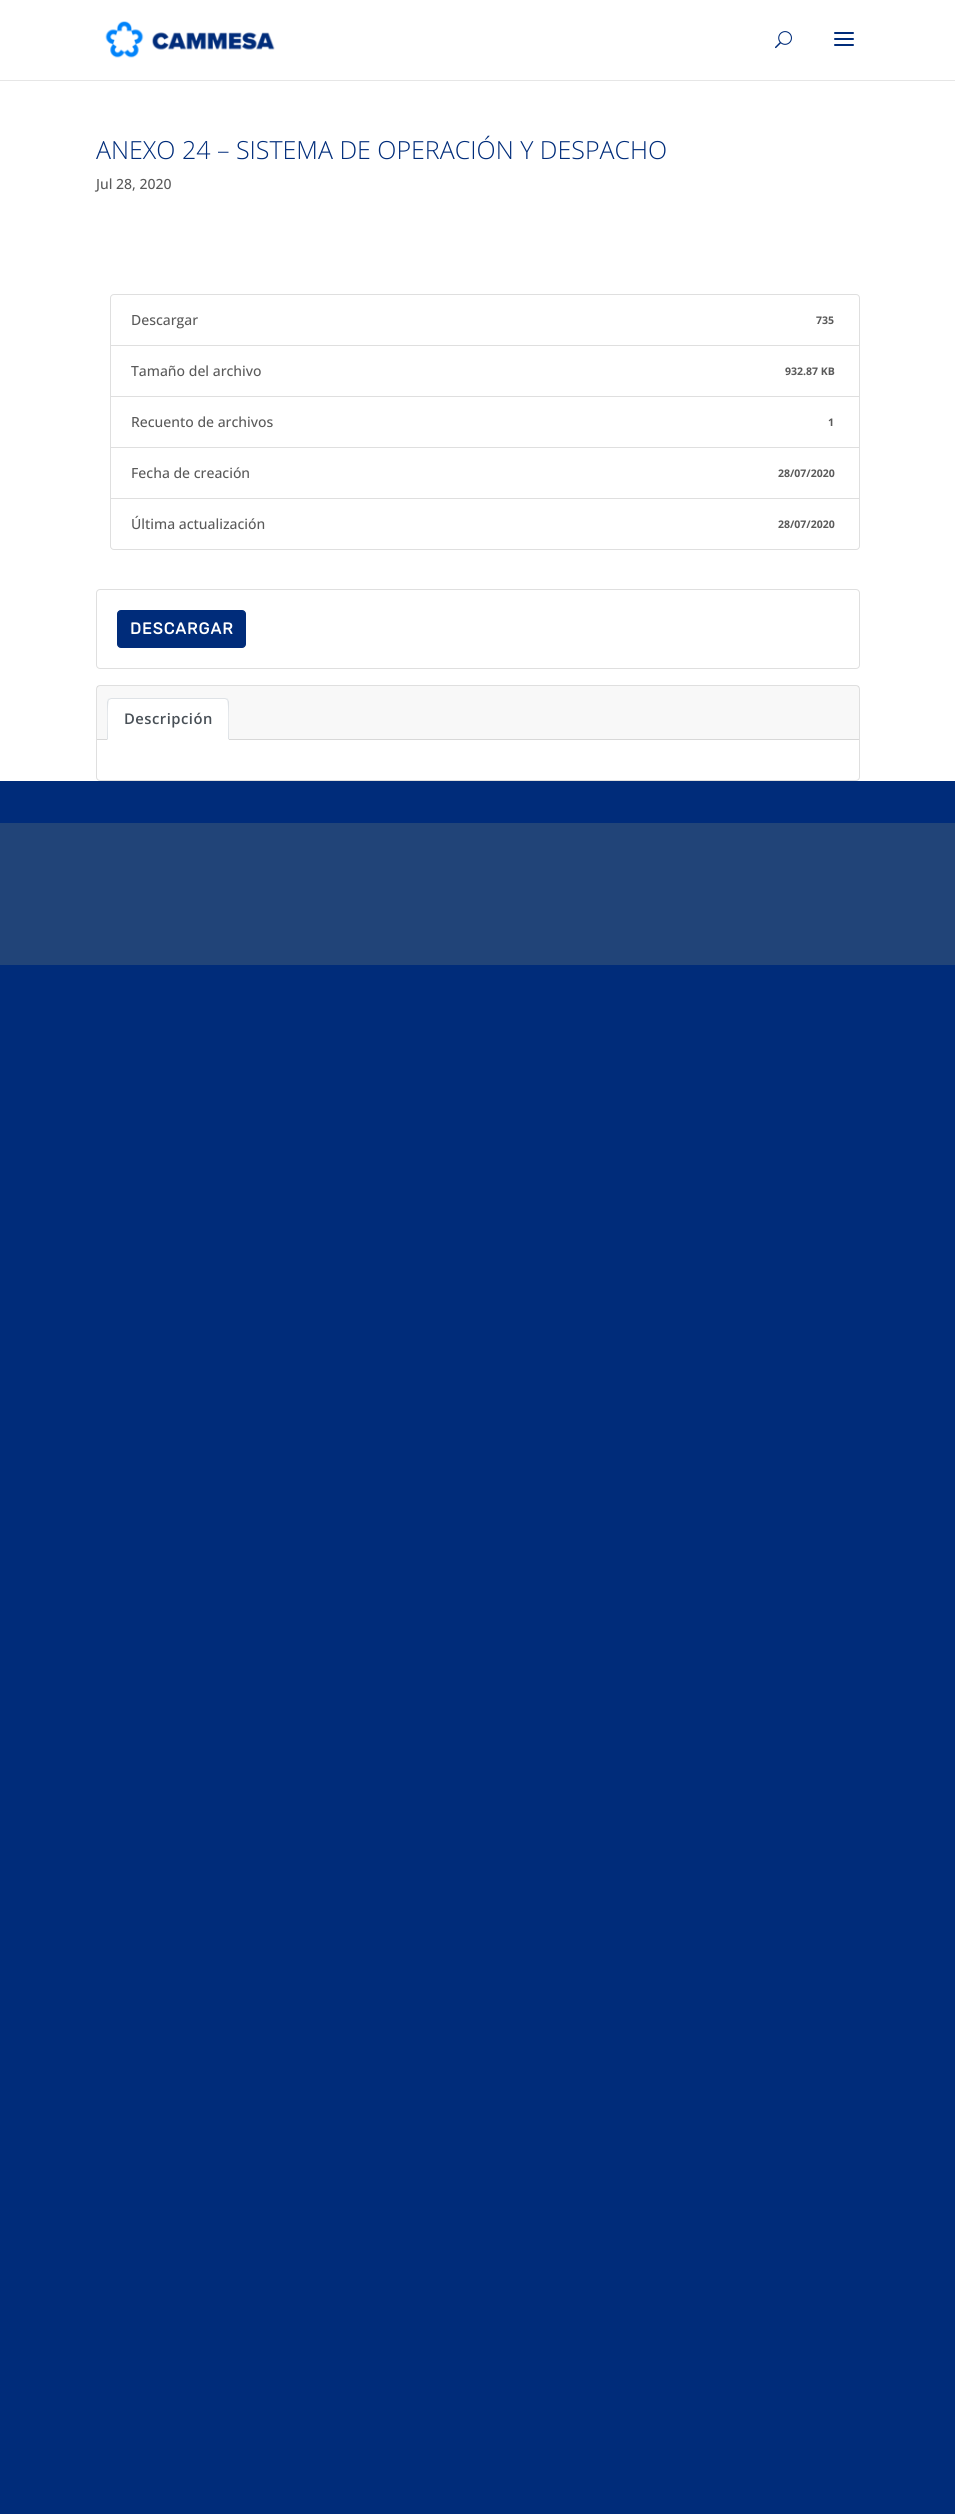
import math
import cairo

surface = cairo.ImageSurface(cairo.FORMAT_RGB24, 955, 2514)
c = cairo.Context(surface)
options = cairo.FontOptions()
options.set_hint_metrics(cairo.HINT_METRICS_OFF)
options.set_hint_style(cairo.HINT_STYLE_NONE)
c.set_font_options(options)
c.set_miter_limit(4)
def C(code):
 c.set_source_rgb(*(v / 255 for v in bytes.fromhex(code[-6:])))
def F(family, size, italic, bold):
 c.select_font_face(family, cairo.FONT_SLANT_ITALIC if italic else cairo.FONT_SLANT_NORMAL, cairo.FONT_WEIGHT_BOLD if bold else cairo.FONT_WEIGHT_NORMAL)
 c.set_font_size(size)
def T(x, y, s):
 c.move_to(x, y)
 c.show_text(s)
def L(x, y, s, letter, word):
 c.move_to(x, y)
 for ch in s:
  c.show_text(ch)
  c.rel_move_to(letter + word * (ch == ' '), 0)
def R(x, y, w, h):
 c.rectangle(x, y, w, h)
 c.fill()
def Q(x, y, w, h, r):
 c.new_sub_path()
 for i, (u, v) in enumerate([(x + w - r, y + h - r), (x + r, y + h - r), (x + r, y + r), (x + w - r, y + r)]):
  c.arc(u, v, r, i * math.pi / 2, (i + 1) * math.pi / 2)
 c.close_path()
def I(path, x, y, w, h):
 c.save()
 c.set_source_surface(cairo.ImageSurface.create_from_png(path), x, y)
 c.rectangle(x, y, w, h)
 c.fill()
 c.restore()
C('002c7a')
c.paint()
C('e6e6e6')
R(0,80,955,1)
C('ffffff')
R(0,0,955,80)
I('1.png',105,21,170,37)
I('2.png',775,31,17,18)
I('3.png',834,32,20,14)
R(0,81,955,700)
F('Open Sans Light',25,0,0)
C('002c7a')
T(96,159,'ANEXO 24 – SISTEMA DE OPERACIÓN Y DESPACHO')
F('Open Sans Medium',14,0,0)
C('5a5a5a')
T(96,189,'Jul 28, 2020')
c.new_path()
c.move_to(114,294.5)
c.line_to(856,294.5)
c.curve_to(858,294.5,859.5,296,859.5,298)
c.line_to(859.5,345.5)
c.line_to(110.5,345.5)
c.line_to(110.5,298)
c.curve_to(110.5,296,112,294.5,114,294.5)
c.close_path()
C('dfdfdf')
c.set_line_width(1)
c.stroke()
C('5a5a5a')
T(131,325,'Descargar')
F('Open Sans',10.5,0,1)
T(816,324,'735')
c.rectangle(110.5,345.5,749,51)
C('dfdfdf')
c.stroke()
F('Open Sans Medium',14,0,0)
C('5a5a5a')
T(131,376,'Tamaño del archivo')
F('Open Sans',10.5,0,1)
T(785,375,'932.87 KB')
c.rectangle(110.5,396.5,749,51)
C('dfdfdf')
c.stroke()
F('Open Sans Medium',14,0,0)
C('5a5a5a')
T(131,427,'Recuento de archivos')
F('Open Sans',10.5,0,1)
T(828,426,'1')
c.rectangle(110.5,447.5,749,51)
C('dfdfdf')
c.stroke()
F('Open Sans Medium',14,0,0)
C('5a5a5a')
T(131,478,'Fecha de creación')
F('Open Sans',10.5,0,1)
T(778,477,'28/07/2020')
C('ffffff')
c.new_path()
c.move_to(110.5,498.5)
c.line_to(859.5,498.5)
c.line_to(859.5,546)
c.curve_to(859.5,548,858,549.5,856,549.5)
c.line_to(114,549.5)
c.curve_to(112,549.5,110.5,548,110.5,546)
c.close_path()
c.fill_preserve()
C('dfdfdf')
c.stroke()
F('Open Sans Medium',14,0,0)
C('5a5a5a')
T(131,529,'Última actualización')
F('Open Sans',10.5,0,1)
T(778,528,'28/07/2020')
Q(96.5,589.5,763,79,3.5)
C('dfdfdf')
c.stroke()
C('002c7a')
Q(117.5,610.5,128,37,3.5)
c.fill_preserve()
c.stroke()
F('Rubik',16,0,1)
C('ffffff')
L(130,634,'DESCARGAR',1,0)
Q(96.5,685.5,763,95,3.5)
C('dfdfdf')
c.stroke()
c.set_source_rgba(0,0,0,0.03)
R(97,686,762,53)
C('d8d8d8')
R(97,739,762,1)
C('ffffff')
c.new_path()
c.move_to(111,698)
c.line_to(225,698)
c.curve_to(227,698,229,700,229,702)
c.line_to(229,740)
c.line_to(107,740)
c.line_to(107,702)
c.curve_to(107,700,109,698,111,698)
c.close_path()
c.fill()
C('dee2e6')
c.new_path()
c.move_to(111,698)
c.line_to(108,699)
c.line_to(109,700)
c.line_to(111,699)
c.line_to(225,699)
c.line_to(227,700)
c.line_to(228,699)
c.line_to(225,698)
c.close_path()
c.fill()
c.new_path()
c.move_to(229,740)
c.line_to(229,702)
c.curve_to(229,701,228,700,228,699)
c.line_to(227,700)
c.curve_to(229,702,228,734,228,739)
c.close_path()
c.fill()
C('ffffff')
c.new_path()
c.move_to(229,740)
c.line_to(228,739)
c.line_to(108,739)
c.line_to(107,740)
c.close_path()
c.fill()
C('dee2e6')
c.new_path()
c.move_to(107,740)
c.line_to(108,739)
c.curve_to(108,734,107,702,109,700)
c.line_to(108,699)
c.line_to(107,702)
c.close_path()
c.fill()
F('Open Sans SemiBold',14.75,0,0)
C('495057')
L(124,724,'Descripción',.5,0)
C('214478')
R(0,823,955,142)
surface.write_to_png('o.png')
